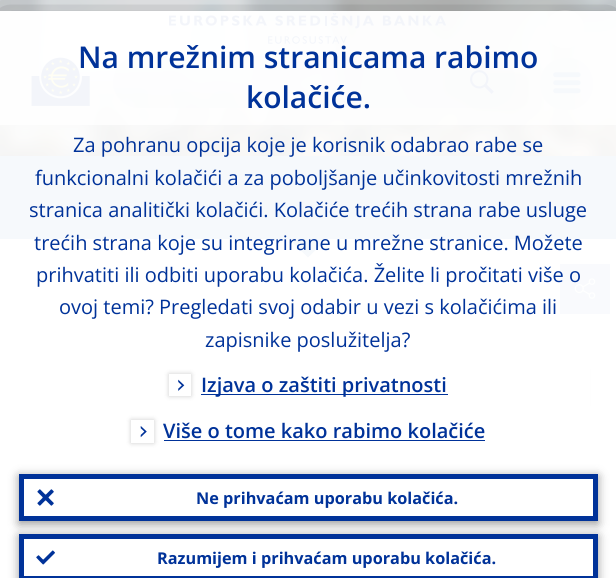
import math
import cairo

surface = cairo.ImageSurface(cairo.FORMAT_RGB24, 616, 578)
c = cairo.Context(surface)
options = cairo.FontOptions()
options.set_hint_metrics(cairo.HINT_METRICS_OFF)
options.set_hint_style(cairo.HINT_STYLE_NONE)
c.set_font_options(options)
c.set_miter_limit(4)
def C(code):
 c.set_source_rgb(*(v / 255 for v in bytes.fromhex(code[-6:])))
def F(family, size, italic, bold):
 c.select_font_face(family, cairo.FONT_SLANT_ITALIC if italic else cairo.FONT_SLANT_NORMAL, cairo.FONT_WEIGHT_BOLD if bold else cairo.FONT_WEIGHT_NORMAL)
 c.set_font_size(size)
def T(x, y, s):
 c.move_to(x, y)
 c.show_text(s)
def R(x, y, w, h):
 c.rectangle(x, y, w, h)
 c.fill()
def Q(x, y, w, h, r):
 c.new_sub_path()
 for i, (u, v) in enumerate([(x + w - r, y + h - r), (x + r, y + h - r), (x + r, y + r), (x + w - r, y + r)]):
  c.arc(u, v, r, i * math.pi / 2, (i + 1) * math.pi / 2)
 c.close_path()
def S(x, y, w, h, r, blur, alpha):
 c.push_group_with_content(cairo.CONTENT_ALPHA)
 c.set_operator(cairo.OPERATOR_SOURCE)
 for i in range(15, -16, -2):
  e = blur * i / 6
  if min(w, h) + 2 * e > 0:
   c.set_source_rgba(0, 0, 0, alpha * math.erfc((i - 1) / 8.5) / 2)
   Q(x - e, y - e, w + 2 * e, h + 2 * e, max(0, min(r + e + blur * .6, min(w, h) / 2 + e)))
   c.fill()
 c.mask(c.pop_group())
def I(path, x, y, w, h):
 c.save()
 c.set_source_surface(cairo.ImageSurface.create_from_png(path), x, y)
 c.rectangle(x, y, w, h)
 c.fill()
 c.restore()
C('ffffff')
c.paint()
I('1.png',0,0,616,156)
C('4076bf')
R(0,156,616,102)
c.save()
c.rectangle(0,156,616,102)
c.clip()
C('ffffff')
c.new_path()
c.move_to(-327,239)
c.line_to(289,239)
c.line_to(327,276)
c.line_to(-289,276)
c.close_path()
c.fill()
c.new_path()
c.move_to(327,239)
c.line_to(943,239)
c.line_to(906,276)
c.line_to(289,276)
c.close_path()
c.fill()
c.restore()
C('fbfbfb')
R(0,344,616,234)
C('eeeeee')
R(590,369,1,37)
C('ffffff')
R(25,528,563,1)
C('799fd2')
R(560,264,50,50)
I('2.png',574,278,22,21)
c.save()
c.rectangle(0,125,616,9)
c.clip()
C('000000')
S(0,0,616,125,0,6,.3)
c.restore()
c.set_source_rgba(1,1,1,0.75)
R(0,0,616,125)
I('3.png',169,13,277,31)
c.set_source_rgba(1,1,1,0.45)
c.arc(565,29,19,0,2 * math.pi)
c.fill()
I('4.png',31,57,59,49)
c.set_source_rgba(0.251,0.463,0.741,0.15)
Q(113,56,403,52,26)
c.fill()
I('5.png',470,70,24,24)
Q(540,58,53,52,25)
c.fill()
I('6.png',553,72,28,22)
c.save()
c.set_fill_rule(cairo.FILL_RULE_EVEN_ODD)
c.new_path()
c.move_to(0,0)
c.line_to(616,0)
c.line_to(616,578)
c.line_to(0,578)
c.close_path()
c.move_to(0,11)
c.line_to(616,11)
c.line_to(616,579)
c.line_to(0,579)
c.close_path()
c.clip()
C('000000')
S(0,14,616,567,0,19,.5)
c.restore()
c.set_source_rgba(1,1,1,0.95)
R(0,11,616,567)
F('Open Sans SemiBold',30,0,0)
C('003299')
T(78,68,'Na mrežnim stranicama rabimo')
T(246,108,'kolačiće.')
F('Open Sans',20,0,0)
T(73,152,'Za pohranu opcija koje je korisnik odabrao rabe se')
T(35,185,'funkcionalni kolačići a za poboljšanje učinkovitosti mrežnih')
T(29,217,'stranica analitički kolačići. Kolačiće trećih strana rabe usluge')
T(34,250,'trećih strana koje su integrirane u mrežne stranice. Možete')
T(36,282,'prihvatiti ili odbiti uporabu kolačića. Želite li pročitati više o')
T(59,314,'ovoj temi? Pregledati svoj odabir u vezi s kolačićima ili')
T(205,347,'zapisnike poslužitelja?')
C('000000')
S(169,374,22,22,0,2.5,.2)
C('ffffff')
R(169,374,22,22)
I('7.png',178,379,7,12)
C('003299')
R(201,394,247,1)
F('Open Sans SemiBold',20,0,0)
T(201,392,'Izjava o zaštiti privatnosti')
C('000000')
S(131,420,23,23,0,2.5,.2)
C('ffffff')
R(131,420,23,23)
I('8.png',140,426,7,12)
C('003299')
T(163,438,'Više o tome kako rabimo kolačiće')
R(164,440,321,1)
C('000000')
S(19,476,579,48,0,5,.4)
C('ffffff')
c.rectangle(21.5,476.5,574,42)
c.fill_preserve()
C('003299')
c.set_line_width(5)
c.stroke()
I('9.png',37,489,17,17)
F('Open Sans',16.25,0,1)
T(196,504,'Ne prihvaćam uporabu kolačića.')
C('000000')
S(19,536,579,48,0,5,.4)
C('ffffff')
c.rectangle(21.5,536.5,574,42)
c.fill_preserve()
C('003299')
c.stroke()
I('10.png',36,550,19,15)
T(157,564,'Razumijem i prihvaćam uporabu kolačića.')
surface.write_to_png('o.png')
